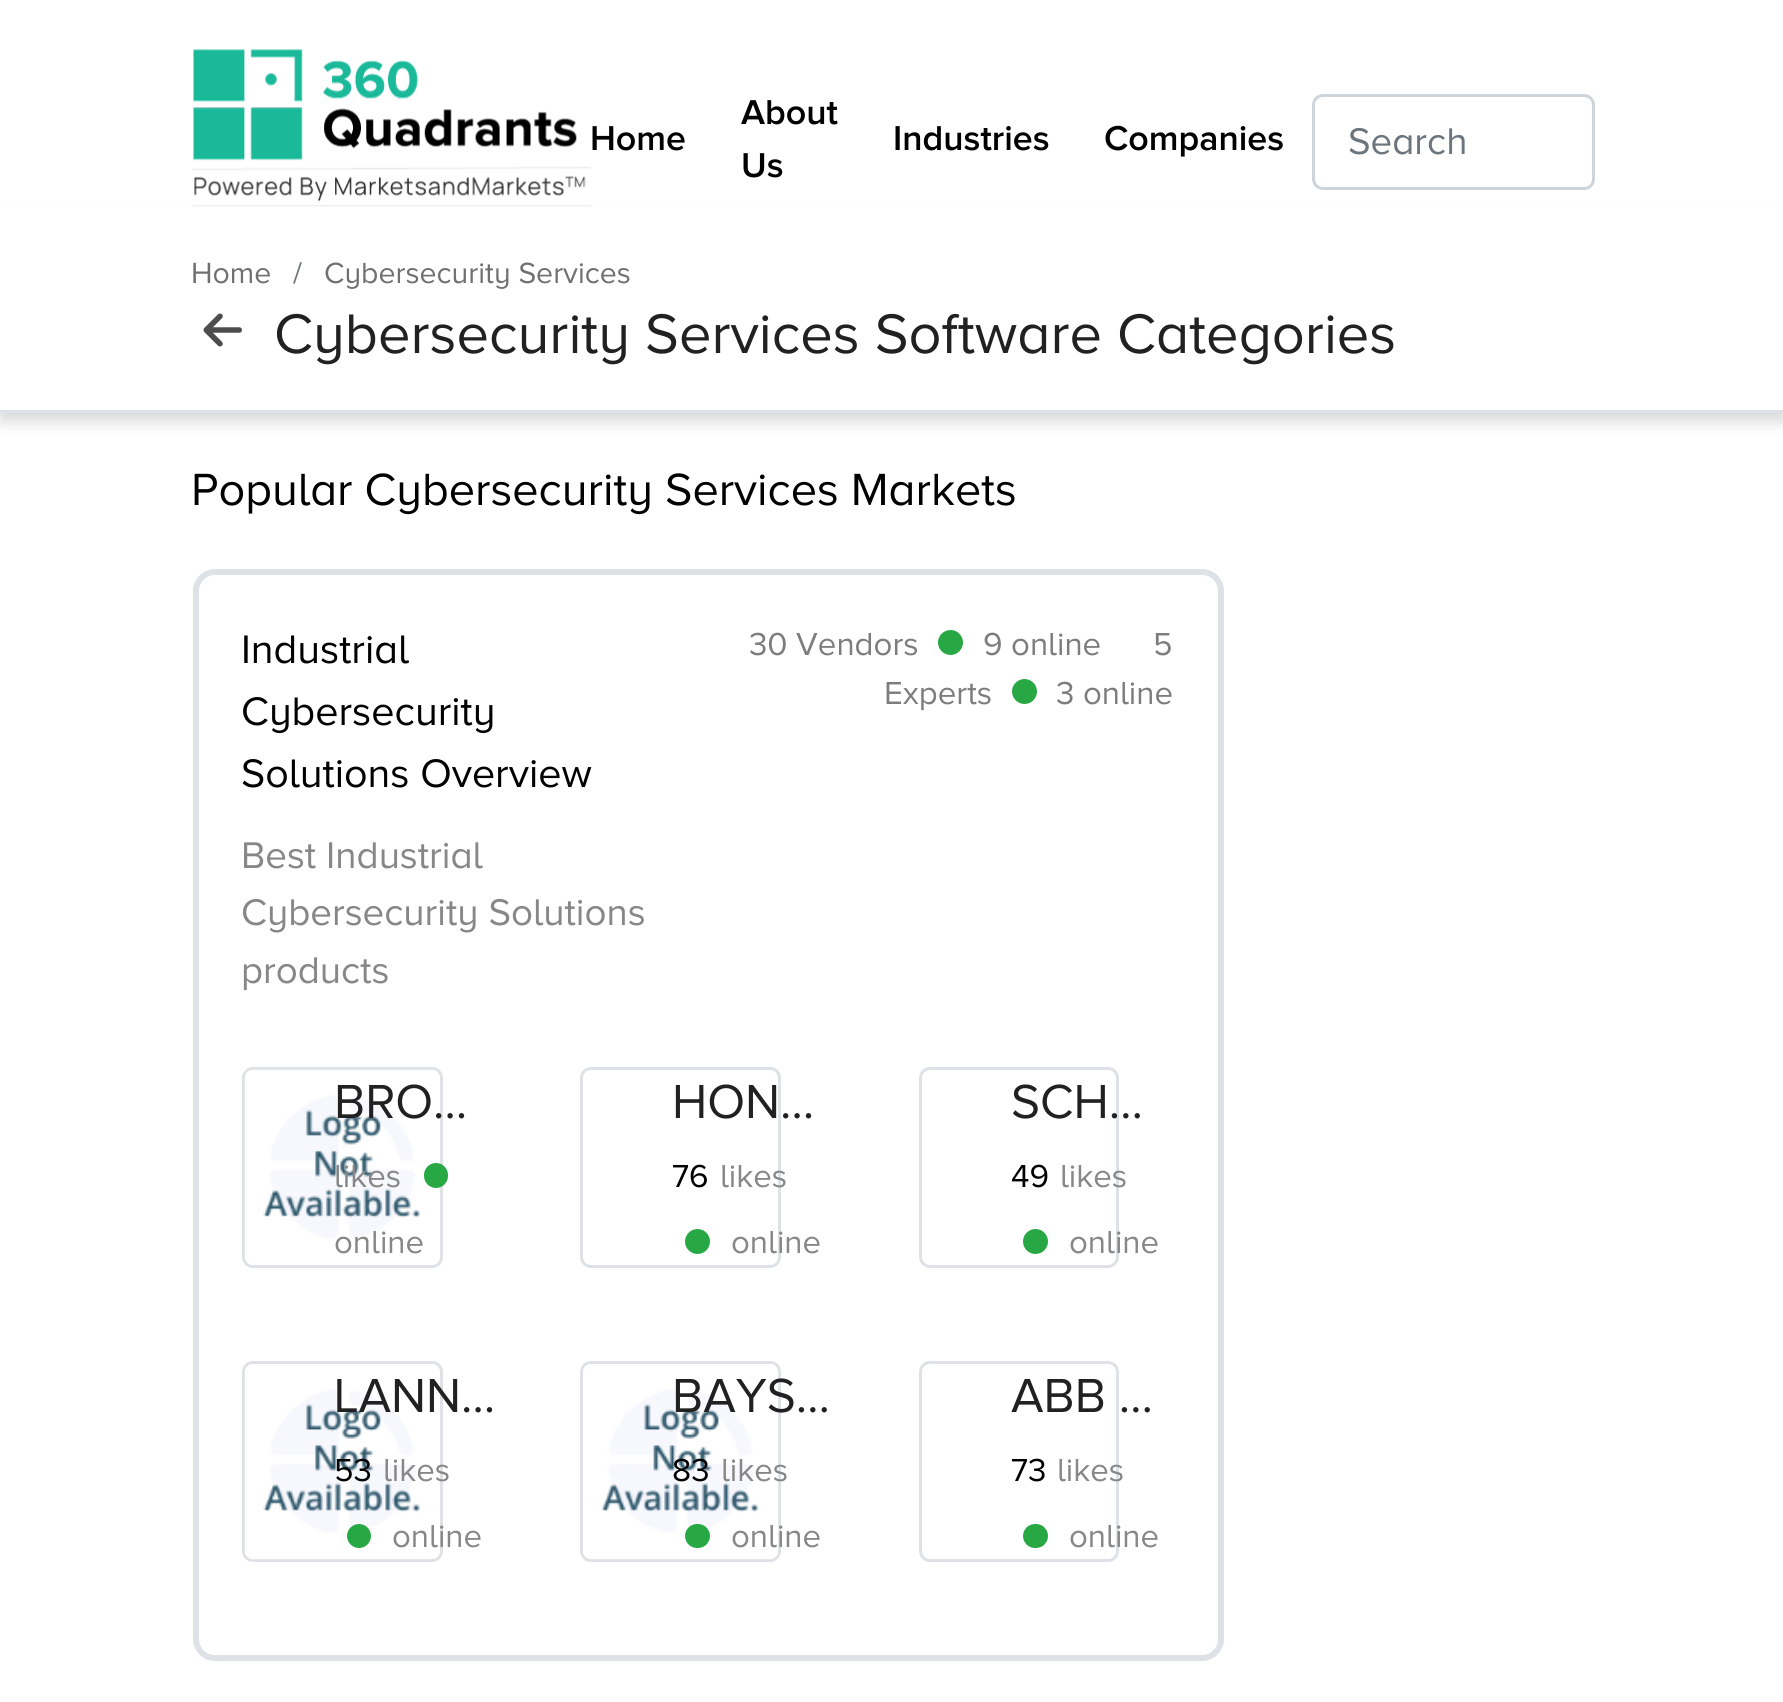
import math
import cairo

surface = cairo.ImageSurface(cairo.FORMAT_RGB24, 1783, 1702)
c = cairo.Context(surface)
options = cairo.FontOptions()
options.set_hint_metrics(cairo.HINT_METRICS_OFF)
options.set_hint_style(cairo.HINT_STYLE_NONE)
c.set_font_options(options)
c.set_miter_limit(4)
def C(code):
 c.set_source_rgb(*(v / 255 for v in bytes.fromhex(code[-6:])))
def F(family, size, italic, bold):
 c.select_font_face(family, cairo.FONT_SLANT_ITALIC if italic else cairo.FONT_SLANT_NORMAL, cairo.FONT_WEIGHT_BOLD if bold else cairo.FONT_WEIGHT_NORMAL)
 c.set_font_size(size)
def T(x, y, s):
 c.move_to(x, y)
 c.show_text(s)
def R(x, y, w, h):
 c.rectangle(x, y, w, h)
 c.fill()
def Q(x, y, w, h, r):
 c.new_sub_path()
 for i, (u, v) in enumerate([(x + w - r, y + h - r), (x + r, y + h - r), (x + r, y + r), (x + w - r, y + r)]):
  c.arc(u, v, r, i * math.pi / 2, (i + 1) * math.pi / 2)
 c.close_path()
def S(x, y, w, h, r, blur, alpha):
 c.push_group_with_content(cairo.CONTENT_ALPHA)
 c.set_operator(cairo.OPERATOR_SOURCE)
 for i in range(15, -16, -2):
  e = blur * i / 6
  if min(w, h) + 2 * e > 0:
   c.set_source_rgba(0, 0, 0, alpha * math.erfc((i - 1) / 8.5) / 2)
   Q(x - e, y - e, w + 2 * e, h + 2 * e, max(0, min(r + e + blur * .6, min(w, h) / 2 + e)))
   c.fill()
 c.mask(c.pop_group())
def I(path, x, y, w, h):
 c.save()
 c.set_source_surface(cairo.ImageSurface.create_from_png(path), x, y)
 c.rectangle(x, y, w, h)
 c.fill()
 c.restore()
C('ffffff')
c.paint()
C('000000')
S(0,215,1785,206,0,8,.16)
C('ffffff')
R(0,203,1783,207)
I('1.png',192,49,399,158)
F('Proxima Nova SemiBold',35.75,0,0)
C('000000')
T(590,150,'Home')
T(741,124,'About')
T(741,177,'Us')
T(893,150,'Industries')
T(1104,150,'Companies')
Q(1313.5,95.5,280,93,9.5)
C('ced4da')
c.set_line_width(3)
c.stroke()
F('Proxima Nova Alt',38.5,0,0)
C('6c757d')
T(1348,154,'Search')
C('dee2e6')
R(0,410,1783,3)
F('Proxima Nova Alt',30.25,0,0)
C('707070')
T(191,283,'Home')
C('6c757d')
T(293,283,'/')
C('707070')
T(324,283,'Cybersecurity Services')
I('2.png',203,313,39,34)
F('Proxima Nova Alt',57.75,0,0)
C('212121')
T(274,353,'Cybersecurity Services Software Categories')
F('Proxima Nova Alt',46.75,0,0)
C('000000')
T(191,505,'Popular Cybersecurity Services Markets')
Q(196,572,1025,1086,19)
C('dee2e6')
c.set_line_width(6)
c.stroke()
F('Proxima Nova Alt',41.25,0,0)
C('000000')
T(241,663,'Industrial')
T(241,725,'Cybersecurity')
T(241,787,'Solutions Overview')
F('Proxima Nova Alt',38.5,0,0)
C('878787')
T(241,868,'Best Industrial')
T(241,925,'Cybersecurity Solutions')
T(241,983,'products')
F('Proxima Nova Alt',33,0,0)
C('7d7d7d')
T(749,655,'30 Vendors')
C('28a745')
c.new_path()
c.arc(950.5,642.5,12.5,0,2 * math.pi)
c.fill()
C('7d7d7d')
T(983,655,'9 online')
T(1153,655,'5')
T(884,704,'Experts')
C('28a745')
c.new_path()
c.arc(1024.5,691.5,12.5,0,2 * math.pi)
c.fill()
C('7d7d7d')
T(1056,704,'3 online')
Q(243.5,1068.5,198,198,9.5)
C('dee2e6')
c.set_line_width(3)
c.stroke()
I('3.png',244,1069,196,196)
F('Proxima Nova Alt',49.5,0,0)
C('212121')
T(334,1118,'BRO…')
F('Proxima Nova Alt',33,0,0)
C('878787')
T(334,1187,'likes')
C('28a745')
Q(424,1163,24,25,12)
c.fill()
C('878787')
T(334,1253,'online')
Q(581.5,1068.5,198,198,9.5)
C('dee2e6')
c.stroke()
F('Proxima Nova Alt',49.5,0,0)
C('212121')
T(672,1118,'HON…')
F('Proxima Nova Alt',33,0,0)
C('000000')
T(672,1187,'76')
C('878787')
T(720,1187,'likes')
C('28a745')
c.new_path()
c.arc(697.5,1241.5,12.5,0,2 * math.pi)
c.fill()
C('878787')
T(731,1253,'online')
Q(920.5,1068.5,197,198,9.5)
C('dee2e6')
c.stroke()
F('Proxima Nova Alt',49.5,0,0)
C('212121')
T(1011,1118,'SCH…')
F('Proxima Nova Alt',33,0,0)
C('000000')
T(1011,1187,'49')
C('878787')
T(1060,1187,'likes')
C('28a745')
c.new_path()
c.arc(1035.5,1241.5,12.5,0,2 * math.pi)
c.fill()
C('878787')
T(1069,1253,'online')
Q(243.5,1362.5,198,198,9.5)
C('dee2e6')
c.stroke()
I('4.png',244,1364,196,196)
F('Proxima Nova Alt',49.5,0,0)
C('212121')
T(334,1412,'LANN…')
F('Proxima Nova Alt',33,0,0)
C('000000')
T(334,1481,'53')
C('878787')
T(383,1481,'likes')
C('28a745')
c.new_path()
c.arc(359,1536,12,0,2 * math.pi)
c.fill()
C('878787')
T(392,1547,'online')
Q(581.5,1362.5,198,198,9.5)
C('dee2e6')
c.stroke()
I('5.png',583,1364,196,196)
F('Proxima Nova Alt',49.5,0,0)
C('212121')
T(672,1412,'BAYS…')
F('Proxima Nova Alt',33,0,0)
C('000000')
T(672,1481,'83')
C('878787')
T(721,1481,'likes')
C('28a745')
Q(685,1524,25,24,12)
c.fill()
C('878787')
T(731,1547,'online')
Q(920.5,1362.5,197,198,9.5)
C('dee2e6')
c.stroke()
F('Proxima Nova Alt',49.5,0,0)
C('212121')
T(1011,1412,'ABB …')
F('Proxima Nova Alt',33,0,0)
C('000000')
T(1011,1481,'73')
C('878787')
T(1057,1481,'likes')
C('28a745')
Q(1023,1524,25,24,12)
c.fill()
C('878787')
T(1069,1547,'online')
surface.write_to_png('o.png')
